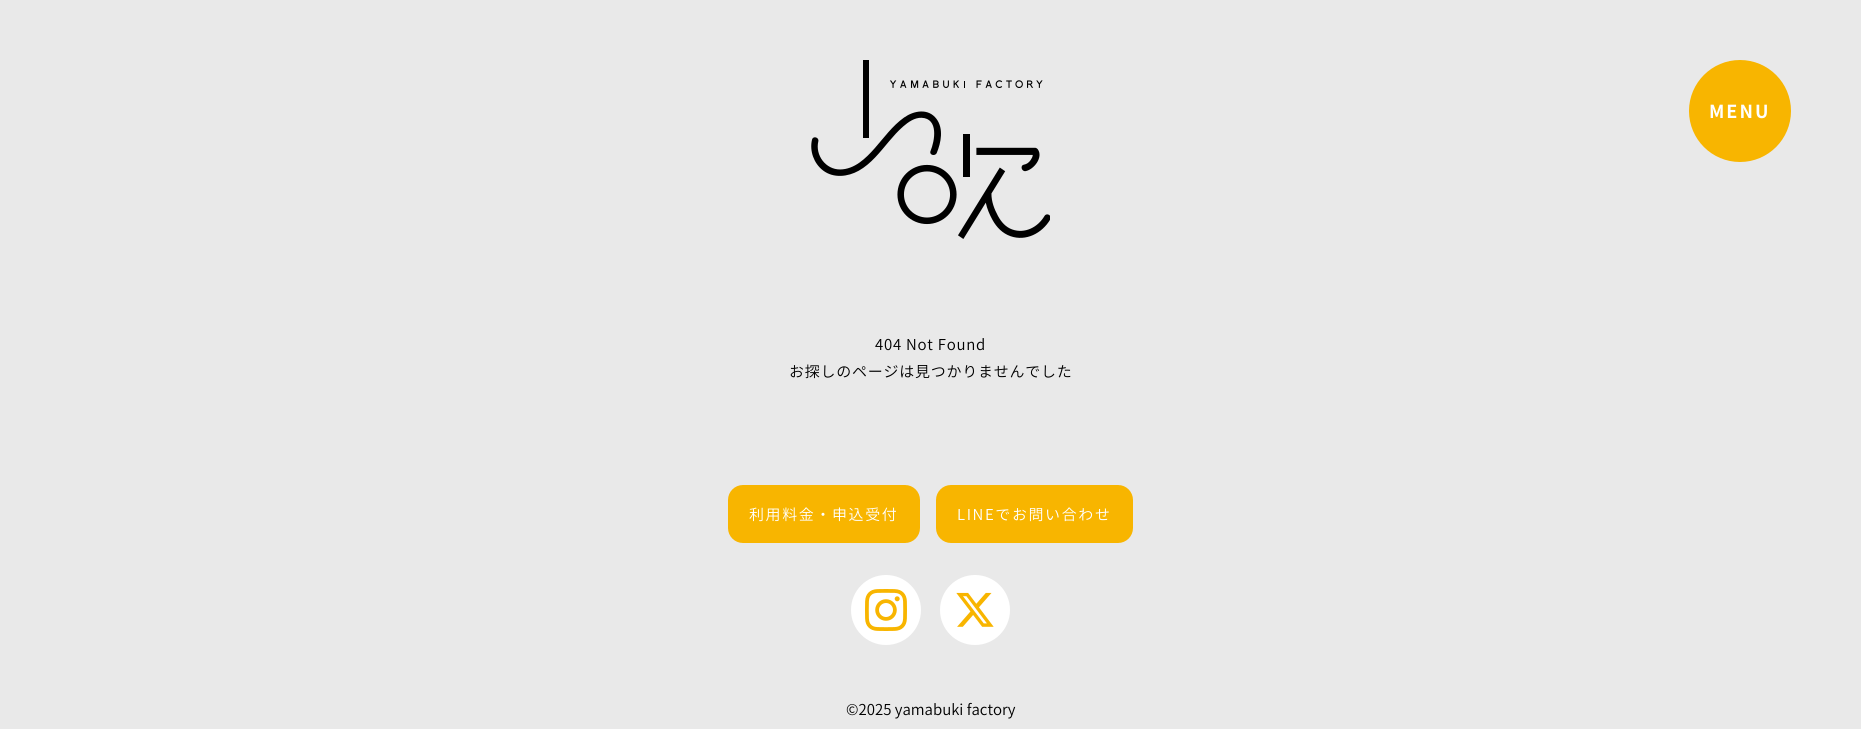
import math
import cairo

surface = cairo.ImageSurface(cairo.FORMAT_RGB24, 1861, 729)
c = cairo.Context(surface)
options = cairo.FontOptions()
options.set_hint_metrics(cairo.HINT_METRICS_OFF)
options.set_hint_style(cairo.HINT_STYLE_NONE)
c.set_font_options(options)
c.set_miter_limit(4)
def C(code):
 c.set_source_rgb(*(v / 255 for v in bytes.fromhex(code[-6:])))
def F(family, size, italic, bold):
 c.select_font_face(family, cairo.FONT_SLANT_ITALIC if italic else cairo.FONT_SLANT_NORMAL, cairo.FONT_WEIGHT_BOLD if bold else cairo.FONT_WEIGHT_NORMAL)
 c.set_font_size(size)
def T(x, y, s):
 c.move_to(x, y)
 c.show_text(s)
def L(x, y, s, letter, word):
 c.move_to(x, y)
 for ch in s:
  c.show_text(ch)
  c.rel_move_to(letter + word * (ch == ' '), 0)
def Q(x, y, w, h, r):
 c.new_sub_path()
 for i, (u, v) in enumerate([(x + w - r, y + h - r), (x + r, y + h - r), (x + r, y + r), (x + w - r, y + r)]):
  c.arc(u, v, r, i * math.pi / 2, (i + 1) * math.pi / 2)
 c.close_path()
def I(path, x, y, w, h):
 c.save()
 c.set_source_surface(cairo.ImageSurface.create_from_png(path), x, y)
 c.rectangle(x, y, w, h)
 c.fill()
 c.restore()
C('e9e9e9')
c.paint()
I('1.png',811,60,239,179)
C('f8b500')
c.arc(1740,111,48,0,2 * math.pi)
c.fill_preserve()
c.set_line_width(6)
c.stroke()
F('Noto Sans JP',18,0,1)
C('ffffff')
L(1709,118,'MENU',2,0)
F('Noto Sans JP Light',15,0,0)
C('000000')
L(875,350,'404 Not Found',.75,0)
L(789,377,'お探しのページは見つかりませんでした',.75,0)
C('f8b500')
Q(731,488,186,52,12)
c.fill_preserve()
c.stroke()
C('ffffff')
L(749,520,'利用料金・申込受付',1.6,0)
C('f8b500')
Q(939,488,191,52,12)
c.fill_preserve()
c.stroke()
C('ffffff')
L(957,520,'LINEでお問い合わせ',1.6,0)
I('2.png',851,575,70,70)
I('3.png',940,575,70,70)
C('000000')
T(846,715,'©2025 yamabuki factory')
surface.write_to_png('o.png')
